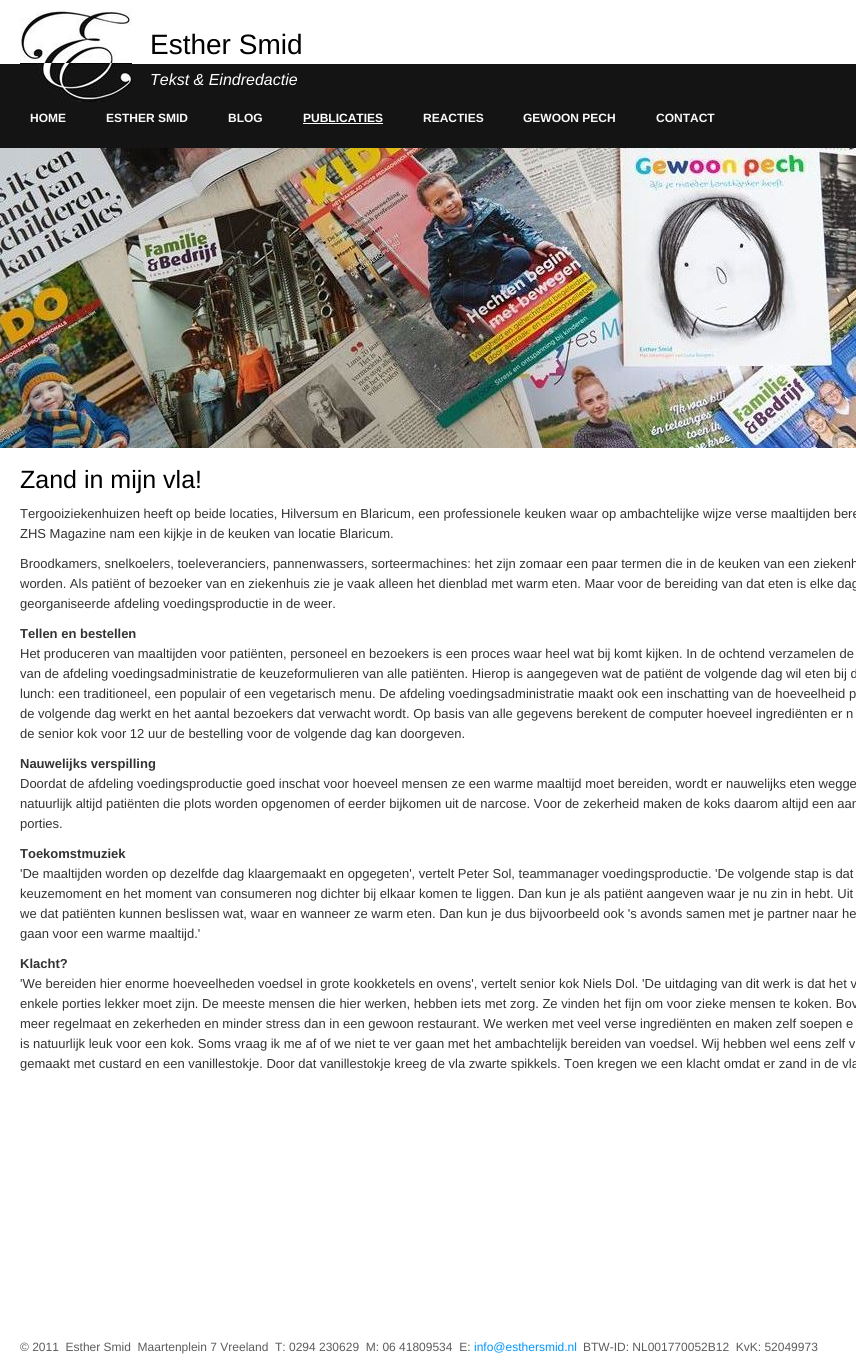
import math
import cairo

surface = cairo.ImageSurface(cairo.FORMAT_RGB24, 856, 1369)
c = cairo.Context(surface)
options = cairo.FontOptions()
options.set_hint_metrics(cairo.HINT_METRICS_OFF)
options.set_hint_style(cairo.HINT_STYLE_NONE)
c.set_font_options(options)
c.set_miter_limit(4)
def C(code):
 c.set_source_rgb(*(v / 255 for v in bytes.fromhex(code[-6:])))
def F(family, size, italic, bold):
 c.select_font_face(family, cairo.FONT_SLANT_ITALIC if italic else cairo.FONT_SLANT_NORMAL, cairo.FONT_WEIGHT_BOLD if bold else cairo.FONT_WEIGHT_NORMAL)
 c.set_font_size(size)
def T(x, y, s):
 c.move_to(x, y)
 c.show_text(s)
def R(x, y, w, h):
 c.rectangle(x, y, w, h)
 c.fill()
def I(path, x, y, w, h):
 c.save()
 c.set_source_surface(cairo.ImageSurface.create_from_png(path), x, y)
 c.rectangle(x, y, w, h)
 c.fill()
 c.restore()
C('ffffff')
c.paint()
C('141414')
R(0,64,856,84)
I('1.png',20,10,112,92)
F('Liberation Sans',28,0,0)
C('000000')
T(150,54,'Esther Smid')
F('Liberation Sans',16,1,0)
C('ffffff')
T(150,85,'Tekst & Eindredactie')
F('Liberation Sans',12,0,1)
C('faf8f8')
T(30,122,'HOME')
T(106,122,'ESTHER SMID')
T(228,122,'BLOG')
C('ffffff')
T(303,122,'PUBLICATIES')
R(303,123,80,1)
C('faf8f8')
T(423,122,'REACTIES')
T(523,122,'GEWOON PECH')
T(656,122,'CONTACT')
I('2.png',0,148,856,300)
F('Liberation Sans',25,0,0)
C('000000')
T(20,488,'Zand in mijn vla!')
F('Liberation Sans',13,0,0)
C('333333')
T(20,518,'Tergooiziekenhuizen heeft op beide locaties, Hilversum en Blaricum, een professionele keuken waar op ambachtelijke wijze verse maaltijden bere')
T(20,538,'ZHS Magazine nam een kijkje in de keuken van locatie Blaricum.')
T(20,568,'Broodkamers, snelkoelers, toeleveranciers, pannenwassers, sorteermachines: het zijn zomaar een paar termen die in de keuken van een ziekenh')
T(20,588,'worden. Als patiënt of bezoeker van en ziekenhuis zie je vaak alleen het dienblad met warm eten. Maar voor de bereiding van dat eten is elke dag')
T(20,608,'georganiseerde afdeling voedingsproductie in de weer.')
F('Liberation Sans',13,0,1)
T(20,638,'Tellen en bestellen')
F('Liberation Sans',13,0,0)
T(20,658,'Het produceren van maaltijden voor patiënten, personeel en bezoekers is een proces waar heel wat bij komt kijken. In de ochtend verzamelen de')
T(20,678,'van de afdeling voedingsadministratie de keuzeformulieren van alle patiënten. Hierop is aangegeven wat de patiënt de volgende dag wil eten bij d')
T(20,698,'lunch: een traditioneel, een populair of een vegetarisch menu. De afdeling voedingsadministratie maakt ook een inschatting van de hoeveelheid p')
T(20,718,'de volgende dag werkt en het aantal bezoekers dat verwacht wordt. Op basis van alle gegevens berekent de computer hoeveel ingrediënten er n')
T(20,738,'de senior kok voor 12 uur de bestelling voor de volgende dag kan doorgeven.')
F('Liberation Sans',13,0,1)
T(20,768,'Nauwelijks verspilling')
F('Liberation Sans',13,0,0)
T(20,788,'Doordat de afdeling voedingsproductie goed inschat voor hoeveel mensen ze een warme maaltijd moet bereiden, wordt er nauwelijks eten wegge')
T(20,808,'natuurlijk altijd patiënten die plots worden opgenomen of eerder bijkomen uit de narcose. Voor de zekerheid maken de koks daarom altijd een aan')
T(20,828,'porties.')
F('Liberation Sans',13,0,1)
T(20,858,'Toekomstmuziek')
F('Liberation Sans',13,0,0)
T(20,878,'\'De maaltijden worden op dezelfde dag klaargemaakt en opgegeten\', vertelt Peter Sol, teammanager voedingsproductie. \'De volgende stap is dat')
T(20,898,'keuzemoment en het moment van consumeren nog dichter bij elkaar komen te liggen. Dan kun je als patiënt aangeven waar je nu zin in hebt. Uit')
T(20,918,'we dat patiënten kunnen beslissen wat, waar en wanneer ze warm eten. Dan kun je dus bijvoorbeeld ook \'s avonds samen met je partner naar he')
T(20,938,'gaan voor een warme maaltijd.\'')
F('Liberation Sans',13,0,1)
T(20,968,'Klacht?')
F('Liberation Sans',13,0,0)
T(20,988,'\'We bereiden hier enorme hoeveelheden voedsel in grote kookketels en ovens\', vertelt senior kok Niels Dol. \'De uitdaging van dit werk is dat het v')
T(20,1008,'enkele porties lekker moet zijn. De meeste mensen die hier werken, hebben iets met zorg. Ze vinden het fijn om voor zieke mensen te koken. Bov')
T(20,1028,'meer regelmaat en zekerheden en minder stress dan in een gewoon restaurant. We werken met veel verse ingrediënten en maken zelf soepen e')
T(20,1048,'is natuurlijk leuk voor een kok. Soms vraag ik me af of we niet te ver gaan met het ambachtelijk bereiden van voedsel. Wij hebben wel eens zelf v')
T(20,1068,'gemaakt met custard en een vanillestokje. Door dat vanillestokje kreeg de vla zwarte spikkels. Toen kregen we een klacht omdat er zand in de vla')
F('Liberation Sans',12,0,0)
C('5c5c5c')
T(20,1351,'© 2011  Esther Smid  Maartenplein 7 Vreeland  T: 0294 230629  M: 06 41809534  E:')
C('0095ff')
T(474,1351,'info@esthersmid.nl')
C('5c5c5c')
T(583,1351,'BTW-ID: NL001770052B12  KvK: 52049973')
surface.write_to_png('o.png')
